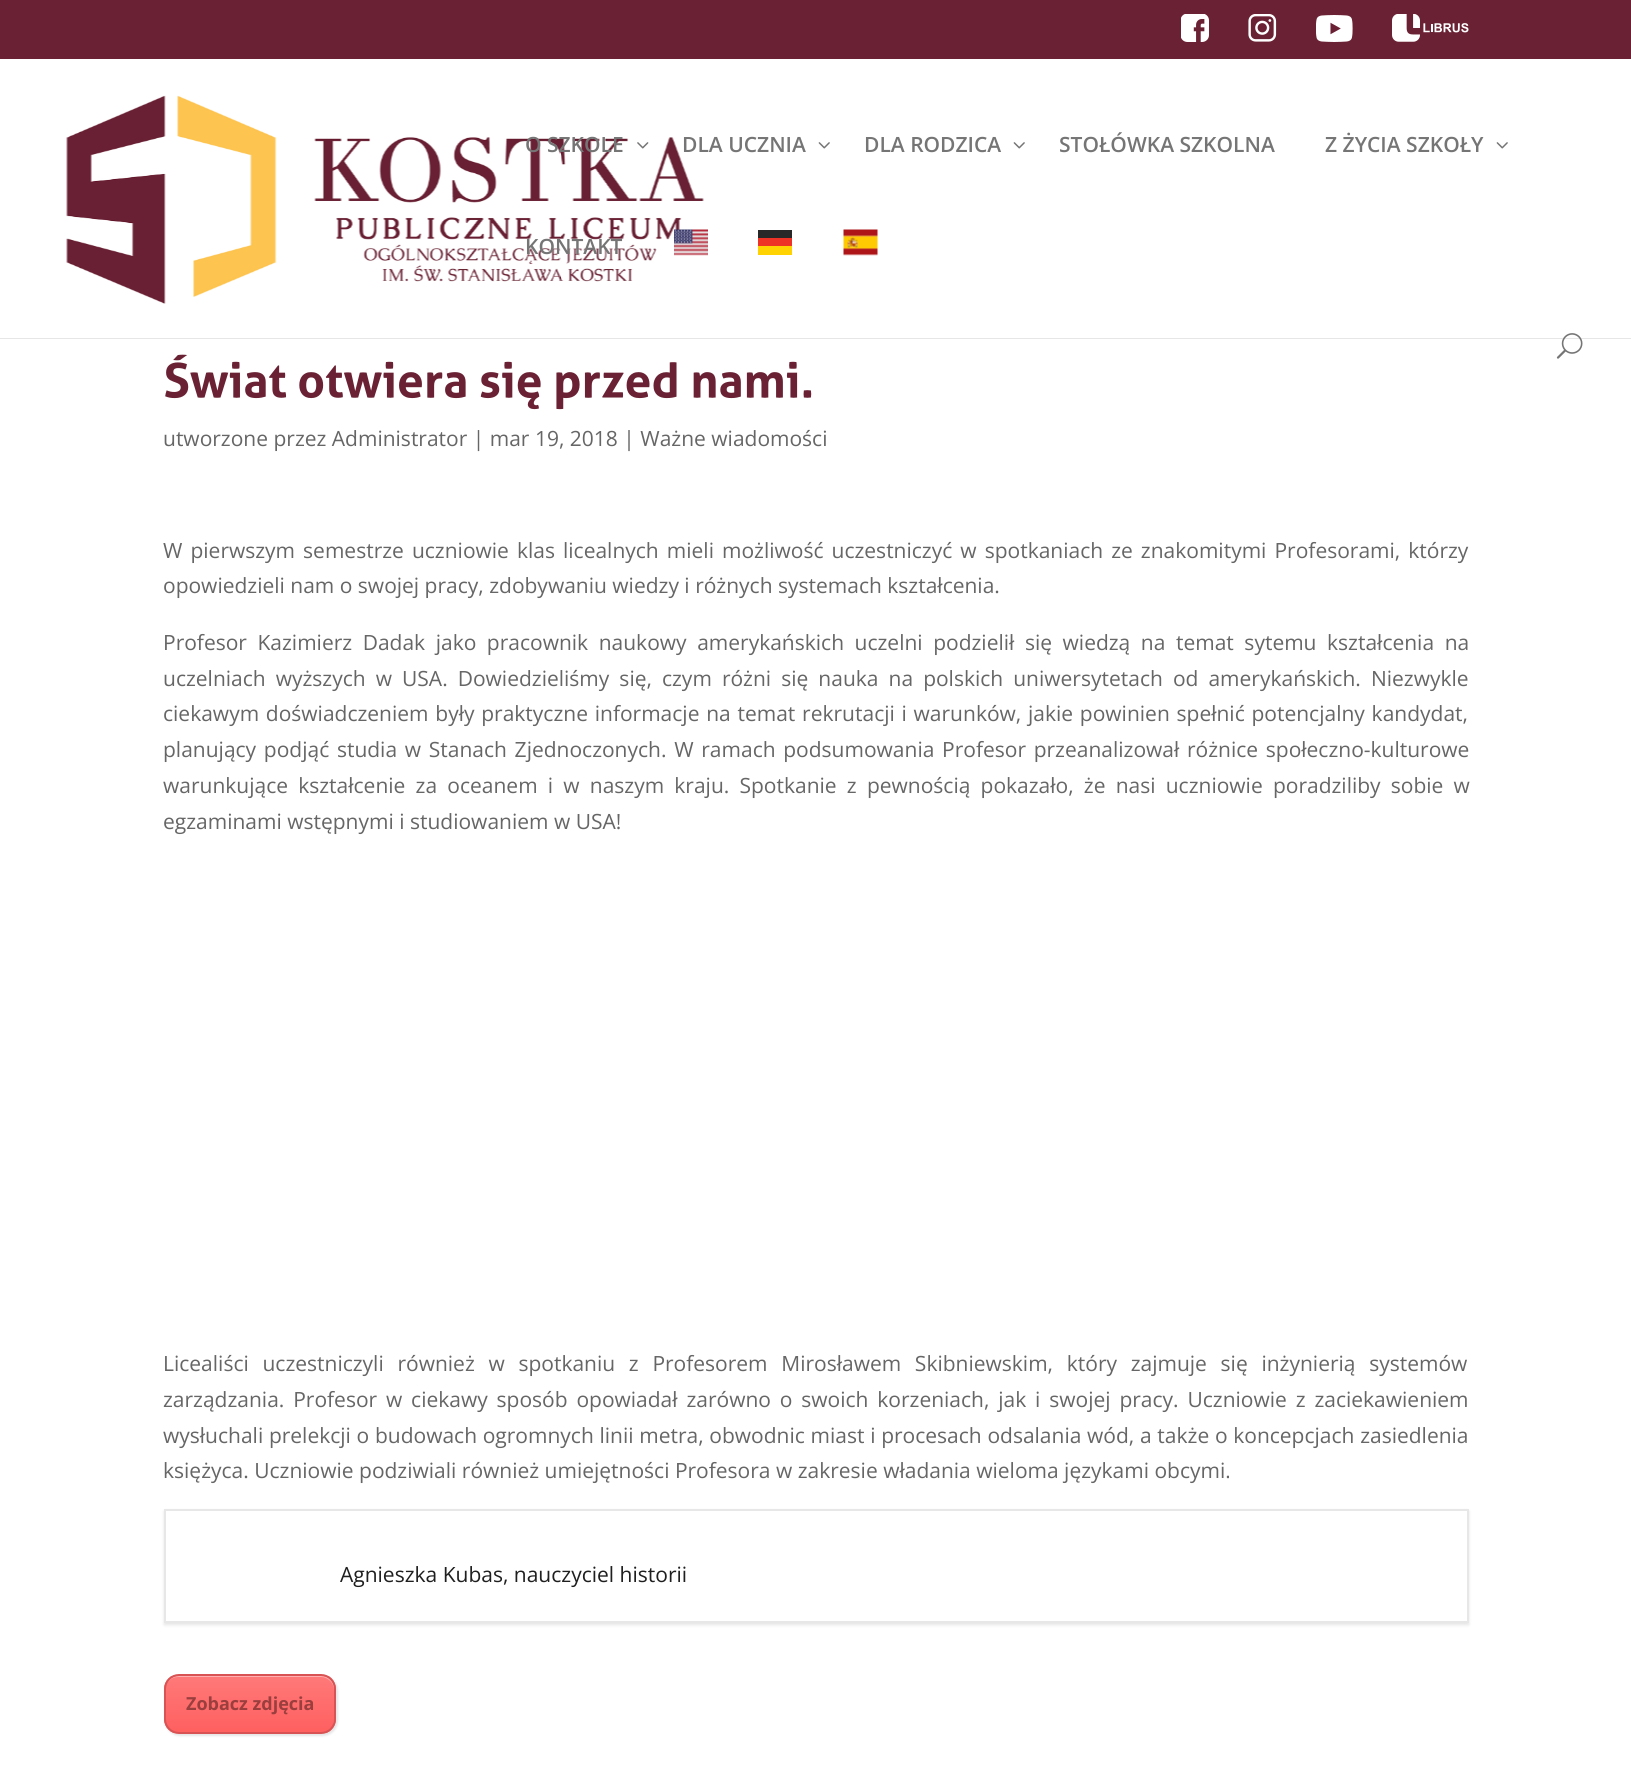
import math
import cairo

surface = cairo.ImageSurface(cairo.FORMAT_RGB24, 1631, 1771)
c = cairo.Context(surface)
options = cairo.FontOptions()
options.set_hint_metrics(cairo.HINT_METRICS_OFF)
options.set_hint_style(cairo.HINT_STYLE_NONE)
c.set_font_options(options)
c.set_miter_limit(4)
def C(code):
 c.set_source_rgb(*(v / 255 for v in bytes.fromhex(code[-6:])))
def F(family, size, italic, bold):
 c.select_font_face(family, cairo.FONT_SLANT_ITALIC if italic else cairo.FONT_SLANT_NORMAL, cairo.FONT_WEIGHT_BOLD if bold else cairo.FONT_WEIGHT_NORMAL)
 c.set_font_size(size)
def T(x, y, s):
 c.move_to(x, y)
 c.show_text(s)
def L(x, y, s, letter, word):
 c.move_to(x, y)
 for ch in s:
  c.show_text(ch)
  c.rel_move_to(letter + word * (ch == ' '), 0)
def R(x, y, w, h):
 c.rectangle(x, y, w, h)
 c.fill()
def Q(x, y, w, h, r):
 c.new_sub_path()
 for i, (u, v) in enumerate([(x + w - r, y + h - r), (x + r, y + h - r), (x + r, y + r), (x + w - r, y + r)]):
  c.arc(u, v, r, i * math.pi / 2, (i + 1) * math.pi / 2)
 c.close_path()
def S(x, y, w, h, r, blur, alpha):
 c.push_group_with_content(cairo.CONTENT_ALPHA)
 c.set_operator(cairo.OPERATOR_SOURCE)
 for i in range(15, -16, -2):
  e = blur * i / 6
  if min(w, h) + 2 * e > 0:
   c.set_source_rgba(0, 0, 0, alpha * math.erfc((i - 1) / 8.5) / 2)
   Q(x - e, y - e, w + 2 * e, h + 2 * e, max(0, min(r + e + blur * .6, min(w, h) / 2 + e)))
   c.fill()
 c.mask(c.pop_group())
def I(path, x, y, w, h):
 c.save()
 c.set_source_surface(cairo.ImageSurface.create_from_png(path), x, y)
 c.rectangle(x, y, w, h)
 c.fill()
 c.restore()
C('ffffff')
c.paint()
C('692133')
R(0,0,1631,59)
I('1.png',1181,14,28,28)
I('2.png',1248,14,29,28)
I('3.png',1316,15,37,27)
I('4.png',1392,14,77,28)
C('e6e6e6')
R(0,338,1631,1)
I('5.png',66,95,638,209)
F('Open Sans SemiBold',21,0,0)
C('757575')
T(525,152,'O SZKOLE')
I('6.png',637,142,12,7)
T(682,152,'DLA UCZNIA')
I('7.png',818,142,12,7)
T(864,152,'DLA RODZICA')
I('7.png',1013,142,12,7)
T(1059,152,'STOŁÓWKA SZKOLNA')
T(1325,152,'Z ŻYCIA SZKOŁY')
I('7.png',1496,142,12,7)
T(525,254,'KONTAKT')
I('8.png',674,229,34,27)
C('282828')
R(758,230,34,8)
C('ee3226')
R(758,238,34,8)
C('ffd302')
R(758,246,34,9)
I('9.png',843,229,35,27)
I('10.png',1556,333,27,26)
I('11.png',165,354,647,56)
F('Open Sans',21,0,0)
C('666666')
T(163,446,'utworzone przez Administrator | mar 19, 2018 | Ważne wiadomości')
L(163,558,'W pierwszym semestrze uczniowie klas licealnych mieli możliwość uczestniczyć w spotkaniach ze znakomitymi Profesorami, którzy',0,2.6)
T(163,593,'opowiedzieli nam o swojej pracy, zdobywaniu wiedzy i różnych systemach kształcenia.')
L(163,650,'Profesor Kazimierz Dadak jako pracownik naukowy amerykańskich uczelni podzielił się wiedzą na temat sytemu kształcenia na',0,5.1)
L(163,686,'uczelniach wyższych w USA. Dowiedzieliśmy się, czym różni się nauka na polskich uniwersytetach od amerykańskich. Niezwykle',0,4.6)
L(163,721,'ciekawym doświadczeniem były praktyczne informacje na temat rekrutacji i warunków, jakie powinien spełnić potencjalny kandydat,',0,1.3)
L(163,757,'planujący podjąć studia w Stanach Zjednoczonych. W ramach podsumowania Profesor przeanalizował różnice społeczno-kulturowe',0,2.25)
L(163,793,'warunkujące kształcenie za oceanem i w naszym kraju. Spotkanie z pewnością pokazało, że nasi uczniowie poradziliby sobie w',0,4.75)
T(163,829,'egzaminami wstępnymi i studiowaniem w USA!')
L(163,1371,'Licealiści uczestniczyli również w spotkaniu z Profesorem Mirosławem Skibniewskim, który zajmuje się inżynierią systemów',0,8.25)
L(163,1407,'zarządzania. Profesor w ciekawy sposób opowiadał zarówno o swoich korzeniach, jak i swojej pracy. Uczniowie z zaciekawieniem',0,3.4)
L(163,1443,'wysłuchali prelekcji o budowach ogromnych linii metra, obwodnic miast i procesach odsalania wód, a także o koncepcjach zasiedlenia',0,.25)
T(163,1478,'księżyca. Uczniowie podziwiali również umiejętności Profesora w zakresie władania wieloma językami obcymi.')
C('000000')
S(164,1511,1305,114,0,1.5,.1)
C('ffffff')
c.rectangle(165,1510,1303,112)
c.fill_preserve()
C('e7e7e7')
c.stroke()
C('201f1f')
T(340,1582,'Agnieszka Kubas, nauczyciel historii')
C('000000')
S(165,1676,173,60,15,1,.1)
c.save()
Q(164,1674,172,60,15)
c.clip()
gradient = cairo.LinearGradient(250,1676,250,1733)
gradient.add_color_stop_rgba(0,1,0.475,0.475,1)
gradient.add_color_stop_rgba(1,1,0.373,0.373,1)
c.set_source(gradient)
R(164,1676,172,57)
c.restore()
c.set_source_rgba(1,1,1,0.4)
c.new_path()
c.move_to(178,1677)
c.line_to(321,1677)
c.curve_to(328,1677,334,1683,334,1690)
c.line_to(334,1720)
c.curve_to(334,1723,333,1726,332,1728)
c.curve_to(334,1726,335,1722,335,1719)
c.line_to(335,1690)
c.curve_to(335,1682,329,1676,321,1676)
c.line_to(179,1676)
c.curve_to(171,1676,165,1682,165,1690)
c.curve_to(165,1683,171,1677,178,1677)
c.close_path()
c.fill()
Q(165,1675,170,58,14)
C('d85353')
c.stroke()
F('Open Sans',18,0,1)
C('9a3e3e')
T(186,1710,'Zobacz zdjęcia')
surface.write_to_png('o.png')
